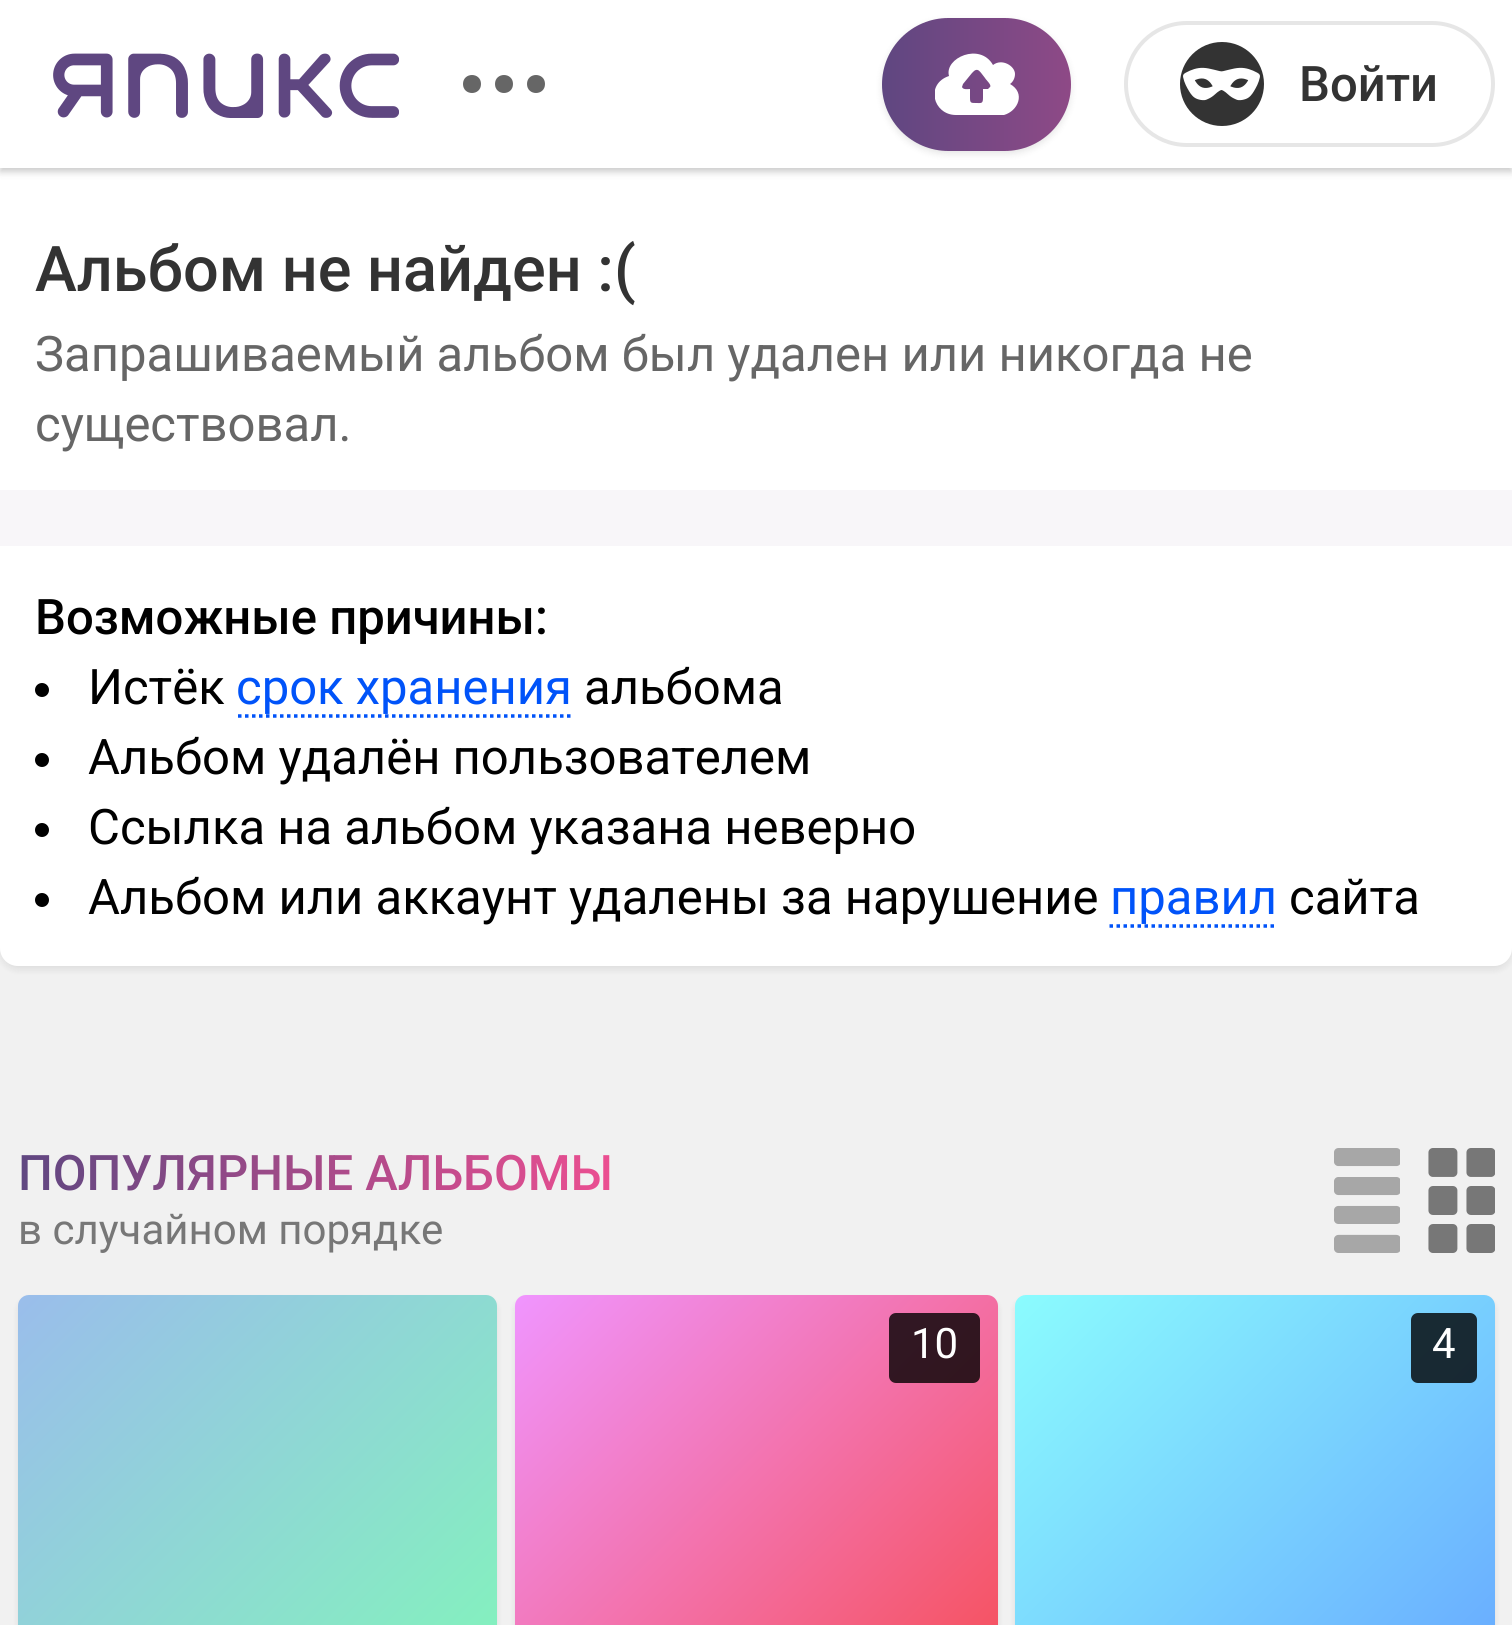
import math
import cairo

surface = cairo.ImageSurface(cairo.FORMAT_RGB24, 1512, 1625)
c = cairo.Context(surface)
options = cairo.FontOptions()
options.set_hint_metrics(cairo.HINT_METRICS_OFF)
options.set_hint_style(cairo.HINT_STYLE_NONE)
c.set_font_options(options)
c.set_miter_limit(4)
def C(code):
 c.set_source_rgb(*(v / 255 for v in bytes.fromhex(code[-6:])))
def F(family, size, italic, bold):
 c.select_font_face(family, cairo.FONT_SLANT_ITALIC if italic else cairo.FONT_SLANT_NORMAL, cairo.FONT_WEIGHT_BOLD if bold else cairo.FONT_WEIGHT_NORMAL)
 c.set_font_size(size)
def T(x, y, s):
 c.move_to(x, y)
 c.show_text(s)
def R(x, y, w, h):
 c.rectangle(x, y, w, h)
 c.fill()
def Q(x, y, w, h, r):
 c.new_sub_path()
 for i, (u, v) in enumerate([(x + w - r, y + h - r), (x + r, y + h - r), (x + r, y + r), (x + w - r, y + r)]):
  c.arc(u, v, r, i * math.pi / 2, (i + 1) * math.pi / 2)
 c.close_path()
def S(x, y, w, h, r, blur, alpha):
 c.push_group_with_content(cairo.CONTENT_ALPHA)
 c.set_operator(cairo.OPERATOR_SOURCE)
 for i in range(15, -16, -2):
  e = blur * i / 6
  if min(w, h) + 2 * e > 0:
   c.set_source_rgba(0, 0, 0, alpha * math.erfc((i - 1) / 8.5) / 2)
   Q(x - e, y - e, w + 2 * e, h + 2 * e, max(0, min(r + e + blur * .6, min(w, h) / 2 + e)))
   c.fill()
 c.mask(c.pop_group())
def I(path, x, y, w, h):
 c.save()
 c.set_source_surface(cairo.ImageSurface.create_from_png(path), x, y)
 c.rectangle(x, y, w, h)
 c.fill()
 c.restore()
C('f1f1f1')
c.paint()
C('000000')
S(0,172,1512,798,18,3.5,.08)
C('ffffff')
c.new_path()
c.move_to(0,168)
c.line_to(1512,168)
c.line_to(1512,948)
c.curve_to(1512,958,1504,966,1494,966)
c.line_to(18,966)
c.curve_to(8,966,0,958,0,948)
c.close_path()
c.fill()
C('000000')
S(0,4,1512,168,0,3.5,.2)
C('ffffff')
R(0,0,1512,168)
I('1.png',53,53,346,65)
C('666666')
c.new_path()
c.move_to(481,84)
c.curve_to(481,96,463,96,463,84)
c.curve_to(463,72,481,72,481,84)
c.close_path()
c.move_to(513,84)
c.curve_to(513,96,495,96,495,84)
c.curve_to(495,72,513,72,513,84)
c.close_path()
c.fill()
c.new_path()
c.move_to(545,84)
c.curve_to(545,96,527,96,527,84)
c.curve_to(527,72,545,72,545,84)
c.close_path()
c.fill()
C('000000')
S(882,21,189,133,66.5,3.5,.1)
gradient = cairo.LinearGradient(882,84,1449,84)
gradient.add_color_stop_rgba(0,0.373,0.278,0.506,1)
gradient.add_color_stop_rgba(1,0.925,0.306,0.569,1)
c.set_source(gradient)
Q(882,18,189,133,66.5)
c.fill()
c.save()
c.rectangle(935,42,84,84)
c.clip()
C('ffffff')
c.new_path()
c.move_to(1010,84)
c.curve_to(1013,82,1015,78,1015,74)
c.curve_to(1015,66,1002,58,993,65)
c.curve_to(980,42,944,58,949,76)
c.curve_to(925,84,933,115,956,115)
c.line_to(1004,115)
c.curve_to(1018,111,1026,93,1010,84)
c.close_path()
c.move_to(988,89)
c.line_to(983,89)
c.line_to(983,98)
c.curve_to(983,104,981,103,976,103)
c.curve_to(971,103,970,103,970,98)
c.line_to(970,89)
c.curve_to(968,89,963,90,962,87)
c.line_to(963,84)
c.line_to(972,73)
c.curve_to(978,66,980,72,985,78)
c.curve_to(986,80,992,85,990,87)
c.close_path()
c.fill()
c.restore()
Q(1126,23,367,122,61)
C('e6e6e6')
c.set_line_width(4)
c.stroke()
C('333333')
c.arc(1222,84,42,0,2 * math.pi)
c.fill()
I('2.png',1183,67,77,34)
F('Roboto Medium',49,0,0)
T(1299,101,'Войти')
F('Roboto Medium',63,0,0)
T(35,291,'Альбом не найден :(')
F('Roboto',49,0,0)
C('666666')
T(35,371,'Запрашиваемый альбом был удален или никогда не')
T(35,441,'существовал.')
C('f8f6f9')
R(0,490,1512,56)
F('Roboto Medium',49,0,0)
C('000000')
T(35,634,'Возможные причины:')
c.new_path()
c.arc(42,690,7,0,2 * math.pi)
c.fill()
F('Roboto',49,0,0)
T(88,704,'Истёк')
C('0053f9')
T(236,704,'срок хранения')
c.new_path()
c.move_to(238,716)
c.line_to(574,716)
c.set_line_width(3.5)
c.set_dash([3.5,3.5])
c.stroke()
C('000000')
T(584,704,'альбома')
c.new_path()
c.arc(42,760,7,0,2 * math.pi)
c.fill()
T(88,774,'Альбом удалён пользователем')
c.new_path()
c.arc(42,830,7,0,2 * math.pi)
c.fill()
T(88,844,'Ссылка на альбом указана неверно')
c.new_path()
c.arc(42,900,7,0,2 * math.pi)
c.fill()
T(88,914,'Альбом или аккаунт удалены за нарушение')
C('0053f9')
T(1110,914,'правил')
c.new_path()
c.move_to(1109.5,926)
c.line_to(1277.5,926)
c.stroke()
C('000000')
T(1289,914,'сайта')
F('Roboto Medium',49,0,0)
gradient = cairo.LinearGradient(18,1173,613,1173)
gradient.add_color_stop_rgba(0,0.373,0.278,0.506,1)
gradient.add_color_stop_rgba(1,0.925,0.306,0.569,1)
c.set_source(gradient)
T(18,1190,'ПОПУЛЯРНЫЕ АЛЬБОМЫ')
F('Roboto',42,0,0)
C('777777')
T(18,1244,'в случайном порядке')
I('3.png',1334,1148,66,105)
I('4.png',1428,1148,67,105)
C('000000')
S(18,1299,479,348,11,3.5,.08)
gradient = cairo.LinearGradient(18,1295,497,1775)
gradient.add_color_stop_rgba(0,0.604,0.741,0.922,1)
gradient.add_color_stop_rgba(1,0.502,0.976,0.718,1)
c.set_source(gradient)
Q(18,1295,479,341,11)
c.fill()
C('000000')
S(515,1299,483,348,11,3.5,.08)
gradient = cairo.LinearGradient(516,1293,996,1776)
gradient.add_color_stop_rgba(0,0.941,0.584,1,1)
gradient.add_color_stop_rgba(1,0.965,0.282,0.282,1)
c.set_source(gradient)
Q(515,1295,483,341,11)
c.fill()
c.set_source_rgba(0,0,0,0.8)
Q(889,1313,91,70,7)
c.fill()
C('ffffff')
T(911,1358,'10')
C('000000')
S(1015,1299,480,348,11,3.5,.08)
gradient = cairo.LinearGradient(1015,1295,1495,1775)
gradient.add_color_stop_rgba(0,0.545,0.988,0.996,1)
gradient.add_color_stop_rgba(1,0.392,0.631,1,1)
c.set_source(gradient)
Q(1015,1295,480,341,11)
c.fill()
c.set_source_rgba(0,0,0,0.8)
Q(1411,1313,66,70,7)
c.fill()
C('ffffff')
T(1432,1358,'4')
surface.write_to_png('o.png')
